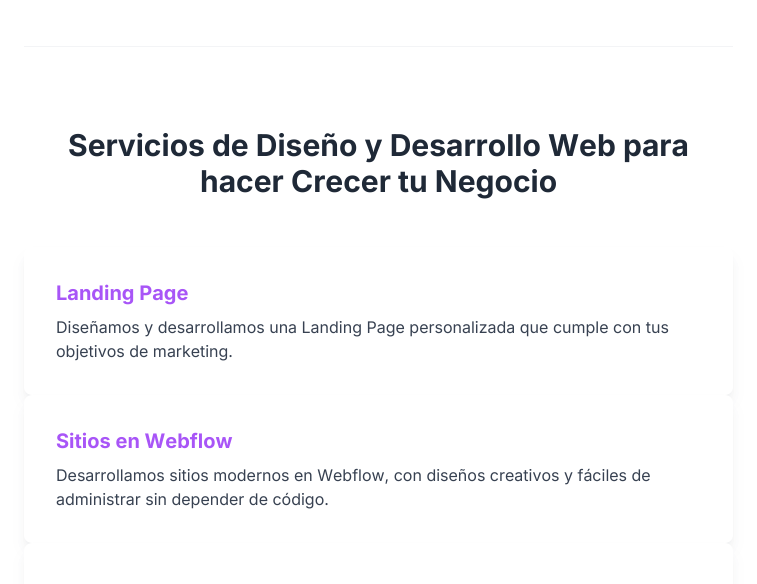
import math
import cairo

surface = cairo.ImageSurface(cairo.FORMAT_RGB24, 757, 584)
c = cairo.Context(surface)
options = cairo.FontOptions()
options.set_hint_metrics(cairo.HINT_METRICS_OFF)
options.set_hint_style(cairo.HINT_STYLE_NONE)
c.set_font_options(options)
c.set_miter_limit(4)
def C(code):
 c.set_source_rgb(*(v / 255 for v in bytes.fromhex(code[-6:])))
def F(family, size, italic, bold):
 c.select_font_face(family, cairo.FONT_SLANT_ITALIC if italic else cairo.FONT_SLANT_NORMAL, cairo.FONT_WEIGHT_BOLD if bold else cairo.FONT_WEIGHT_NORMAL)
 c.set_font_size(size)
def T(x, y, s):
 c.move_to(x, y)
 c.show_text(s)
def R(x, y, w, h):
 c.rectangle(x, y, w, h)
 c.fill()
def Q(x, y, w, h, r):
 c.new_sub_path()
 for i, (u, v) in enumerate([(x + w - r, y + h - r), (x + r, y + h - r), (x + r, y + r), (x + w - r, y + r)]):
  c.arc(u, v, r, i * math.pi / 2, (i + 1) * math.pi / 2)
 c.close_path()
def S(x, y, w, h, r, blur, alpha):
 c.push_group_with_content(cairo.CONTENT_ALPHA)
 c.set_operator(cairo.OPERATOR_SOURCE)
 for i in range(15, -16, -2):
  e = blur * i / 6
  if min(w, h) + 2 * e > 0:
   c.set_source_rgba(0, 0, 0, alpha * math.erfc((i - 1) / 8.5) / 2)
   Q(x - e, y - e, w + 2 * e, h + 2 * e, max(0, min(r + e + blur * .6, min(w, h) / 2 + e)))
   c.fill()
 c.mask(c.pop_group())
C('ffffff')
c.paint()
C('f3f4f6')
R(24,46,709,1)
F('Inter',30,0,1)
C('1f2937')
T(68,156,'Servicios de Diseño y Desarrollo Web para')
T(200,192,'hacer Crecer tu Negocio')
C('4b5563')
S(28,255,701,140,4,3,.1)
S(27,260,703,142,5,7.5,.1)
C('ffffff')
Q(24,247,709,148,8)
c.fill()
F('Inter',20,0,1)
C('a855f7')
T(56,300,'Landing Page')
F('Inter',16,0,0)
C('374151')
T(56,333,'Diseñamos y desarrollamos una Landing Page personalizada que cumple con tus')
T(56,357,'objetivos de marketing.')
C('4b5563')
S(28,403,701,140,4,3,.1)
S(27,408,703,142,5,7.5,.1)
C('ffffff')
Q(24,395,709,148,8)
c.fill()
F('Inter',20,0,1)
C('a855f7')
T(56,448,'Sitios en Webflow')
F('Inter',16,0,0)
C('374151')
T(56,481,'Desarrollamos sitios modernos en Webflow, con diseños creativos y fáciles de')
T(56,505,'administrar sin depender de código.')
C('4b5563')
S(27,556,703,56,5,7.5,.1)
C('ffffff')
Q(24,543,709,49,8)
c.fill()
surface.write_to_png('o.png')
